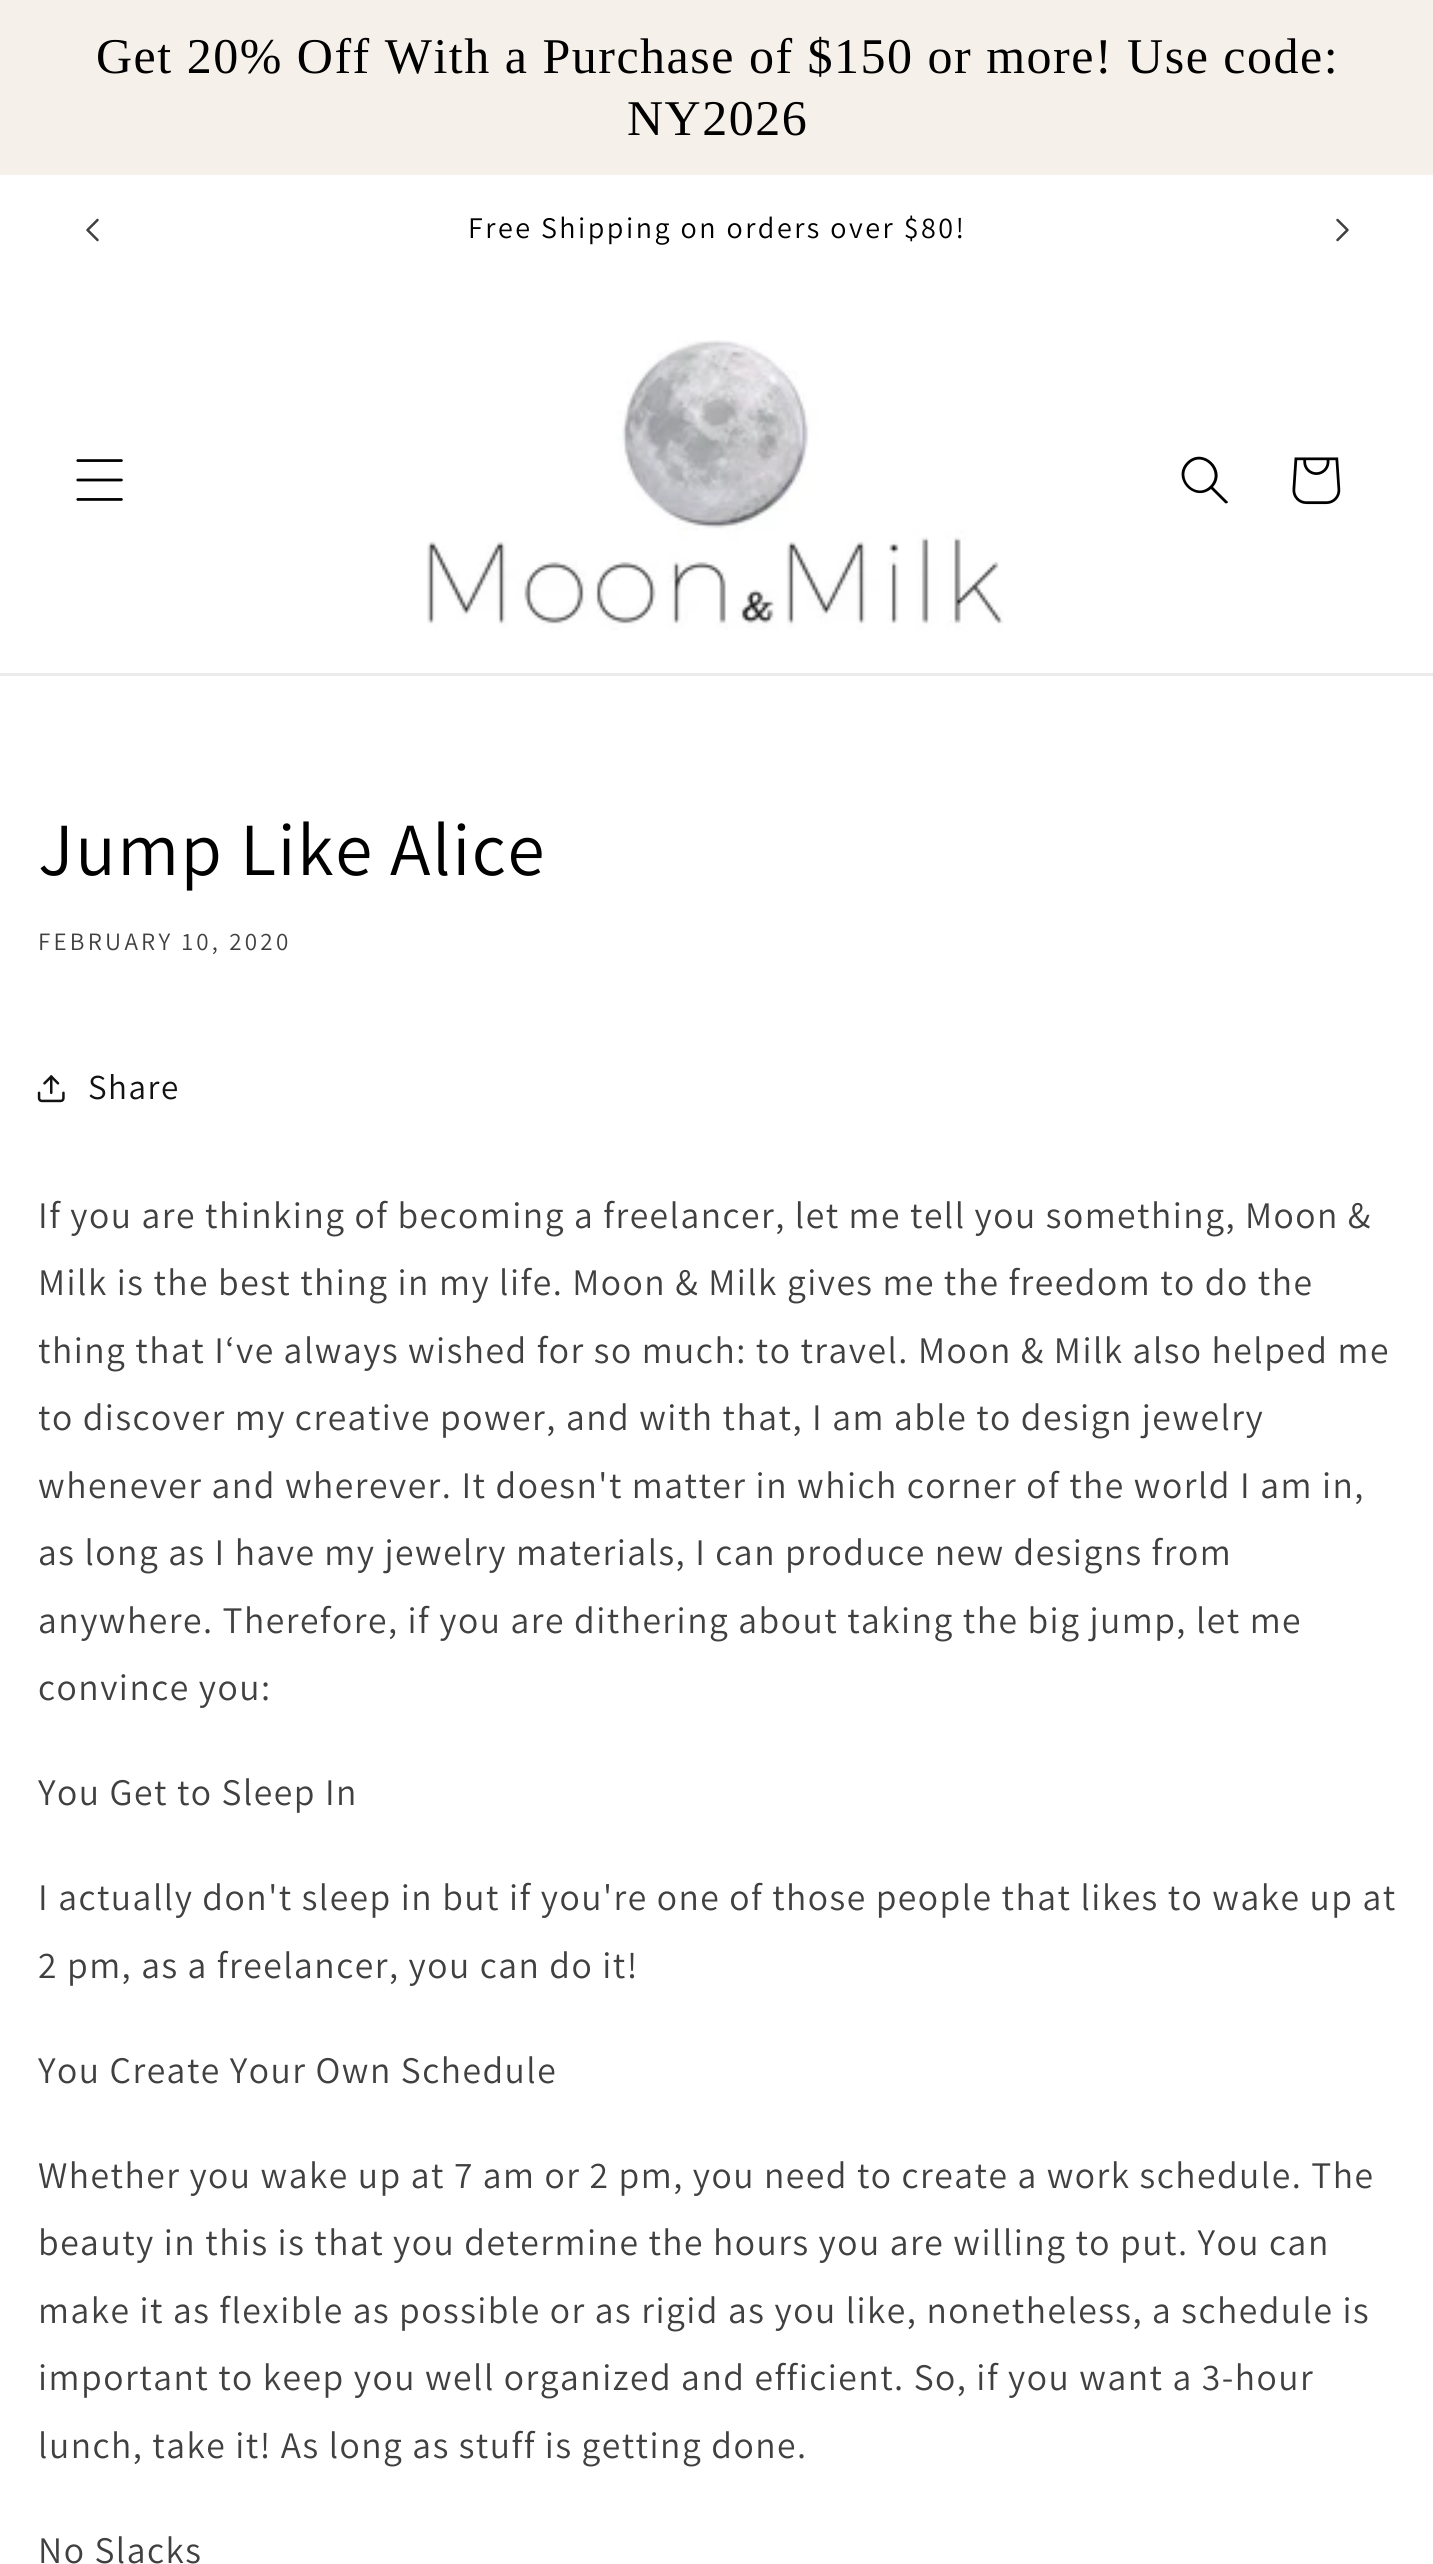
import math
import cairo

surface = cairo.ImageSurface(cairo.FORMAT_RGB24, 1433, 2564)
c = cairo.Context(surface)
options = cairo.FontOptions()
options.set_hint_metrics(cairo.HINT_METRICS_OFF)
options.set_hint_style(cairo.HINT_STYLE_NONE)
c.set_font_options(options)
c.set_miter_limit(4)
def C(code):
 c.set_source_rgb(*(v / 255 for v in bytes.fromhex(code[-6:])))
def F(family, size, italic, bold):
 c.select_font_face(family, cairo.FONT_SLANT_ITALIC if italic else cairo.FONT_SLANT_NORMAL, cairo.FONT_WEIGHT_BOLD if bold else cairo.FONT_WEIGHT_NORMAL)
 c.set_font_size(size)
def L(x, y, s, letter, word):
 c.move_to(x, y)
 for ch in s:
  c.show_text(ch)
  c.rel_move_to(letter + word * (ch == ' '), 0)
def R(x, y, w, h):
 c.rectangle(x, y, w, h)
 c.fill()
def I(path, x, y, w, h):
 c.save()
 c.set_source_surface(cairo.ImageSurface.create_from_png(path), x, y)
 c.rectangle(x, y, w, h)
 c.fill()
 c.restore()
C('ffffff')
c.paint()
C('f6f0ea')
R(0,0,1433,175)
F('Liberation Serif',50,0,0)
C('000000')
L(96,73,'Get 20% Off With a Purchase of $150 or more! Use code:',1.5,0)
L(627,135,'NY2026',1.5,0)
I('1.png',86,218,13,24)
F('Assistant',30,0,0)
L(468,238,'Free Shipping on orders over $80!',2.5,0)
I('2.png',1336,218,13,24)
C('ebebeb')
R(0,673,1433,3)
I('3.png',76,459,47,42)
I('4.png',427,340,577,290)
C('000000')
c.set_fill_rule(cairo.FILL_RULE_EVEN_ODD)
c.new_path()
c.move_to(1210,486)
c.curve_to(1196,500,1175,478,1189,464)
c.curve_to(1203,450,1224,472,1210,486)
c.move_to(1211,489)
c.curve_to(1194,503,1171,478,1187,462)
c.curve_to(1203,446,1228,470,1213,487)
c.line_to(1228,502)
c.curve_to(1228,503,1226,504,1225,503)
c.close_path()
c.fill()
I('5.png',1292,457,49,48)
F('Assistant',75,0,0)
L(38,875,'Jump Like Alice',1.5,0)
F('Assistant',25,0,0)
C('404040')
L(38,950,'FEBRUARY 10, 2020',3.25,0)
I('6.png',37,1075,28,28)
F('Assistant',35,0,0)
C('121212')
L(88,1099,'Share',1.5,0)
F('Assistant',37.5,0,0)
C('404040')
L(38,1228,'If you are thinking of becoming a freelancer, let me tell you something, Moon &',1.5,0)
L(38,1295,'Milk is the best thing in my life. Moon & Milk gives me the freedom to do the',1.5,0)
L(38,1363,'thing that I‘ve always wished for so much: to travel. Moon & Milk also helped me',1.5,0)
L(38,1430,'to discover my creative power, and with that, I am able to design jewelry',1.5,0)
L(38,1498,'whenever and wherever. It doesn\'t matter in which corner of the world I am in,',1.5,0)
L(38,1565,'as long as I have my jewelry materials, I can produce new designs from',1.5,0)
L(38,1633,'anywhere. Therefore, if you are dithering about taking the big jump, let me',1.5,0)
L(38,1700,'convince you:',1.5,0)
L(38,1805,'You Get to Sleep In',1.5,0)
L(38,1910,'I actually don\'t sleep in but if you\'re one of those people that likes to wake up at',1.5,0)
L(38,1978,'2 pm, as a freelancer, you can do it!',1.5,0)
L(38,2083,'You Create Your Own Schedule',1.5,0)
L(38,2188,'Whether you wake up at 7 am or 2 pm, you need to create a work schedule. The',1.5,0)
L(38,2255,'beauty in this is that you determine the hours you are willing to put. You can',1.5,0)
L(38,2323,'make it as flexible as possible or as rigid as you like, nonetheless, a schedule is',1.5,0)
L(38,2390,'important to keep you well organized and efficient. So, if you want a 3-hour',1.5,0)
L(38,2458,'lunch, take it! As long as stuff is getting done.',1.5,0)
L(38,2563,'No Slacks',1.5,0)
surface.write_to_png('o.png')
